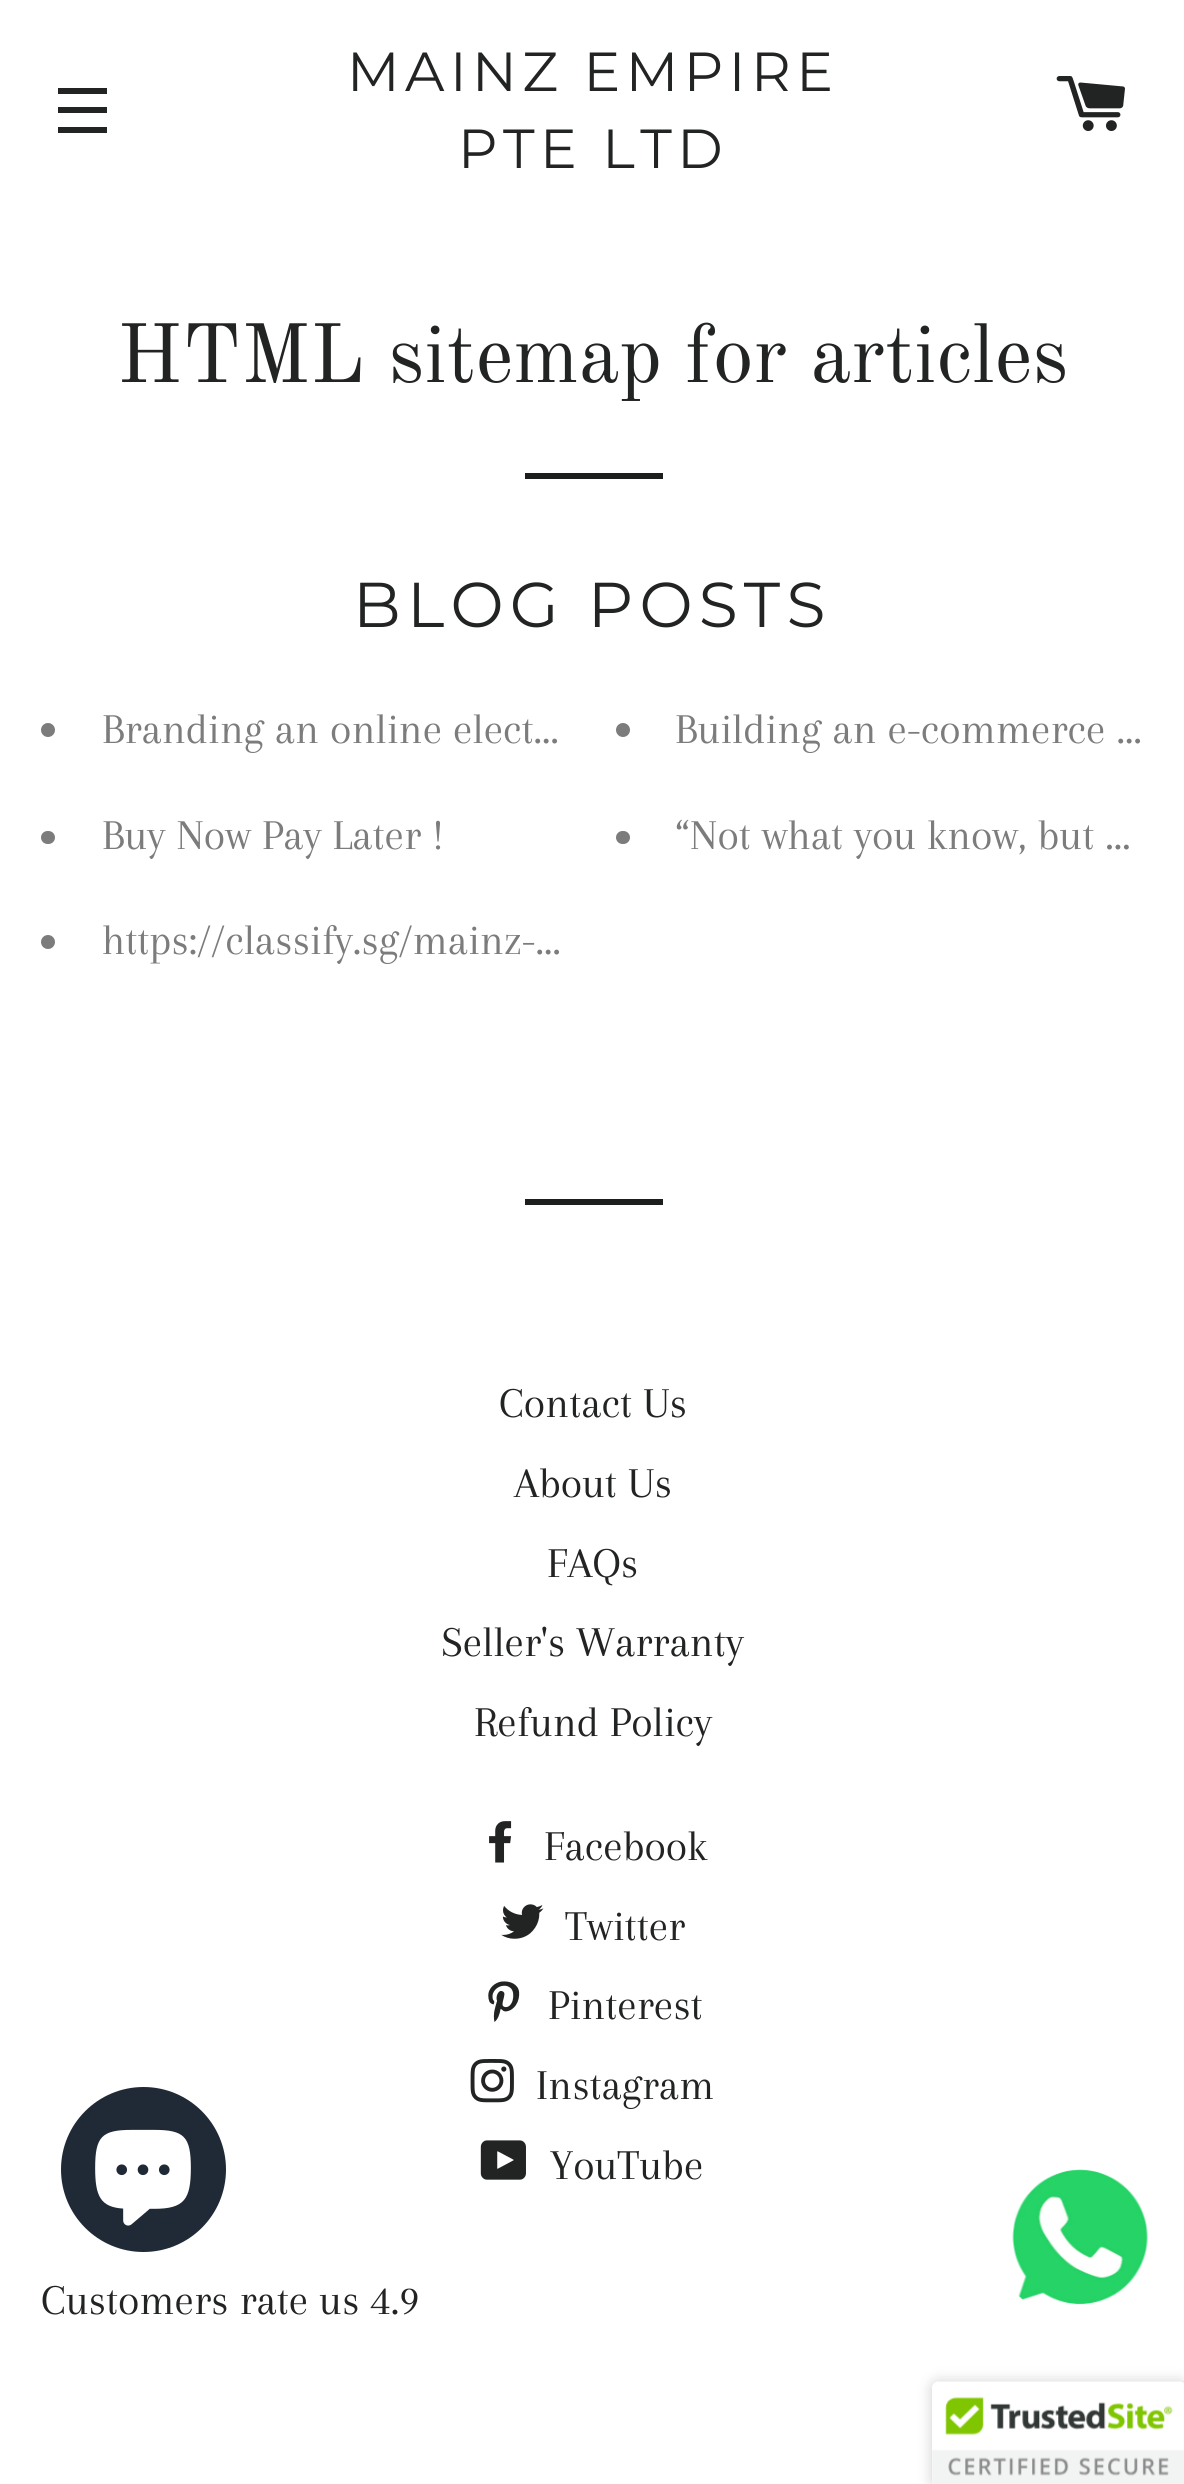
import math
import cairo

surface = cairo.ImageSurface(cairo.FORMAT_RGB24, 1184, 2484)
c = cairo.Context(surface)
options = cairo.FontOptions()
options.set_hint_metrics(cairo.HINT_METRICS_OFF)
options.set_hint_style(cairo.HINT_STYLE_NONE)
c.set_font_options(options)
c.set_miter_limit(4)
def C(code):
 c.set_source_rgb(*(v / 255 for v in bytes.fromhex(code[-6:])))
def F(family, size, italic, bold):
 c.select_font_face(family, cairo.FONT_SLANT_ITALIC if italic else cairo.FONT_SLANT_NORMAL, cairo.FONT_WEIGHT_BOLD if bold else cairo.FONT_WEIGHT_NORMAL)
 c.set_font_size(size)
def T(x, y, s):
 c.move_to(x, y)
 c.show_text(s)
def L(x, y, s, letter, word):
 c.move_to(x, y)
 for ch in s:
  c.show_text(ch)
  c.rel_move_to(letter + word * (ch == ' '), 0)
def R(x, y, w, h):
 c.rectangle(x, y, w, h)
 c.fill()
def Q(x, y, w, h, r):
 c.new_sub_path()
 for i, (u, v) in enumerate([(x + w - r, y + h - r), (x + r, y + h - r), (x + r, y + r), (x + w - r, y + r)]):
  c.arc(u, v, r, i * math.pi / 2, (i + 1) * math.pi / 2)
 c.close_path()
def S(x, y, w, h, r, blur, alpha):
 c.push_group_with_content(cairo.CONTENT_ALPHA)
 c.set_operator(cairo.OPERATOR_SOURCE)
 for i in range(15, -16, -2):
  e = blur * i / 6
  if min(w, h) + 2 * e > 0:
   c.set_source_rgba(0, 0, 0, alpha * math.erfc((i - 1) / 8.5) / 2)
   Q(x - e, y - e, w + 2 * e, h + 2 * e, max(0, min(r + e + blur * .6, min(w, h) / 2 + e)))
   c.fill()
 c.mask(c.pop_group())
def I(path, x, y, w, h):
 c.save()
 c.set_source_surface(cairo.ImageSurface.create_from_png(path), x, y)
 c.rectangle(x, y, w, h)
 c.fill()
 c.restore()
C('ffffff')
c.paint()
C('222323')
R(58,88,49,6)
R(58,107,49,6)
R(58,127,49,6)
F('Montserrat Thin',55,0,0)
L(347,91,'MAINZ EMPIRE',5.5,0)
L(458,168,'PTE LTD',5.5,0)
I('1.png',1056,76,69,55)
F('Old Standard TT',82.5,0,0)
T(117,382,'HTML sitemap for articles')
C('1c1d1d')
R(525,473,138,6)
F('Montserrat Thin',63.25,0,0)
C('222323')
L(353,627,'BLOG POSTS',6.25,0)
C('7c7c7c')
c.new_path()
c.arc(48,730,7,0,2 * math.pi)
c.fill()
F('Arapey',44,0,0)
T(102,743,'Branding an online elect…')
c.new_path()
c.arc(623,730,7,0,2 * math.pi)
c.fill()
T(675,743,'Building an e-commerce …')
Q(41,831,14,13,6.5)
c.fill()
T(102,849,'Buy Now Pay Later !')
Q(616,831,14,13,6.5)
c.fill()
T(675,849,'“Not what you know, but …')
c.new_path()
c.arc(48,942,7,0,2 * math.pi)
c.fill()
T(102,954,'https://classify.sg/mainz-…')
C('1c1d1d')
R(525,1199,138,6)
C('222323')
T(499,1417,'Contact Us')
T(514,1497,'About Us')
T(547,1577,'FAQs')
T(441,1656,'Seller\'s Warranty')
T(474,1736,'Refund Policy')
I('2.png',489,1821,23,42)
T(544,1860,'Facebook')
I('3.png',501,1904,43,35)
T(565,1940,'Twitter')
I('4.png',488,1981,32,41)
T(548,2019,'Pinterest')
I('5.png',470,2059,44,44)
T(536,2099,'Instagram')
I('6.png',480,2140,46,40)
T(550,2179,'YouTube')
T(41,2314,'Customers rate us 4.9')
C('202a36')
c.new_path()
c.arc(143.5,2169.5,82.5,0,2 * math.pi)
c.fill()
I('7.png',95,2129,96,97)
I('8.png',1012,2169,136,136)
C('000000')
S(932,2382,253,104,6,7,.2)
C('ffffff')
c.new_path()
c.move_to(938,2382)
c.line_to(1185,2382)
c.line_to(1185,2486)
c.line_to(932,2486)
c.line_to(932,2388)
c.curve_to(932,2384.5,934.5,2382,938,2382)
c.close_path()
c.fill()
I('9.png',932,2381,252,103)
surface.write_to_png('o.png')
